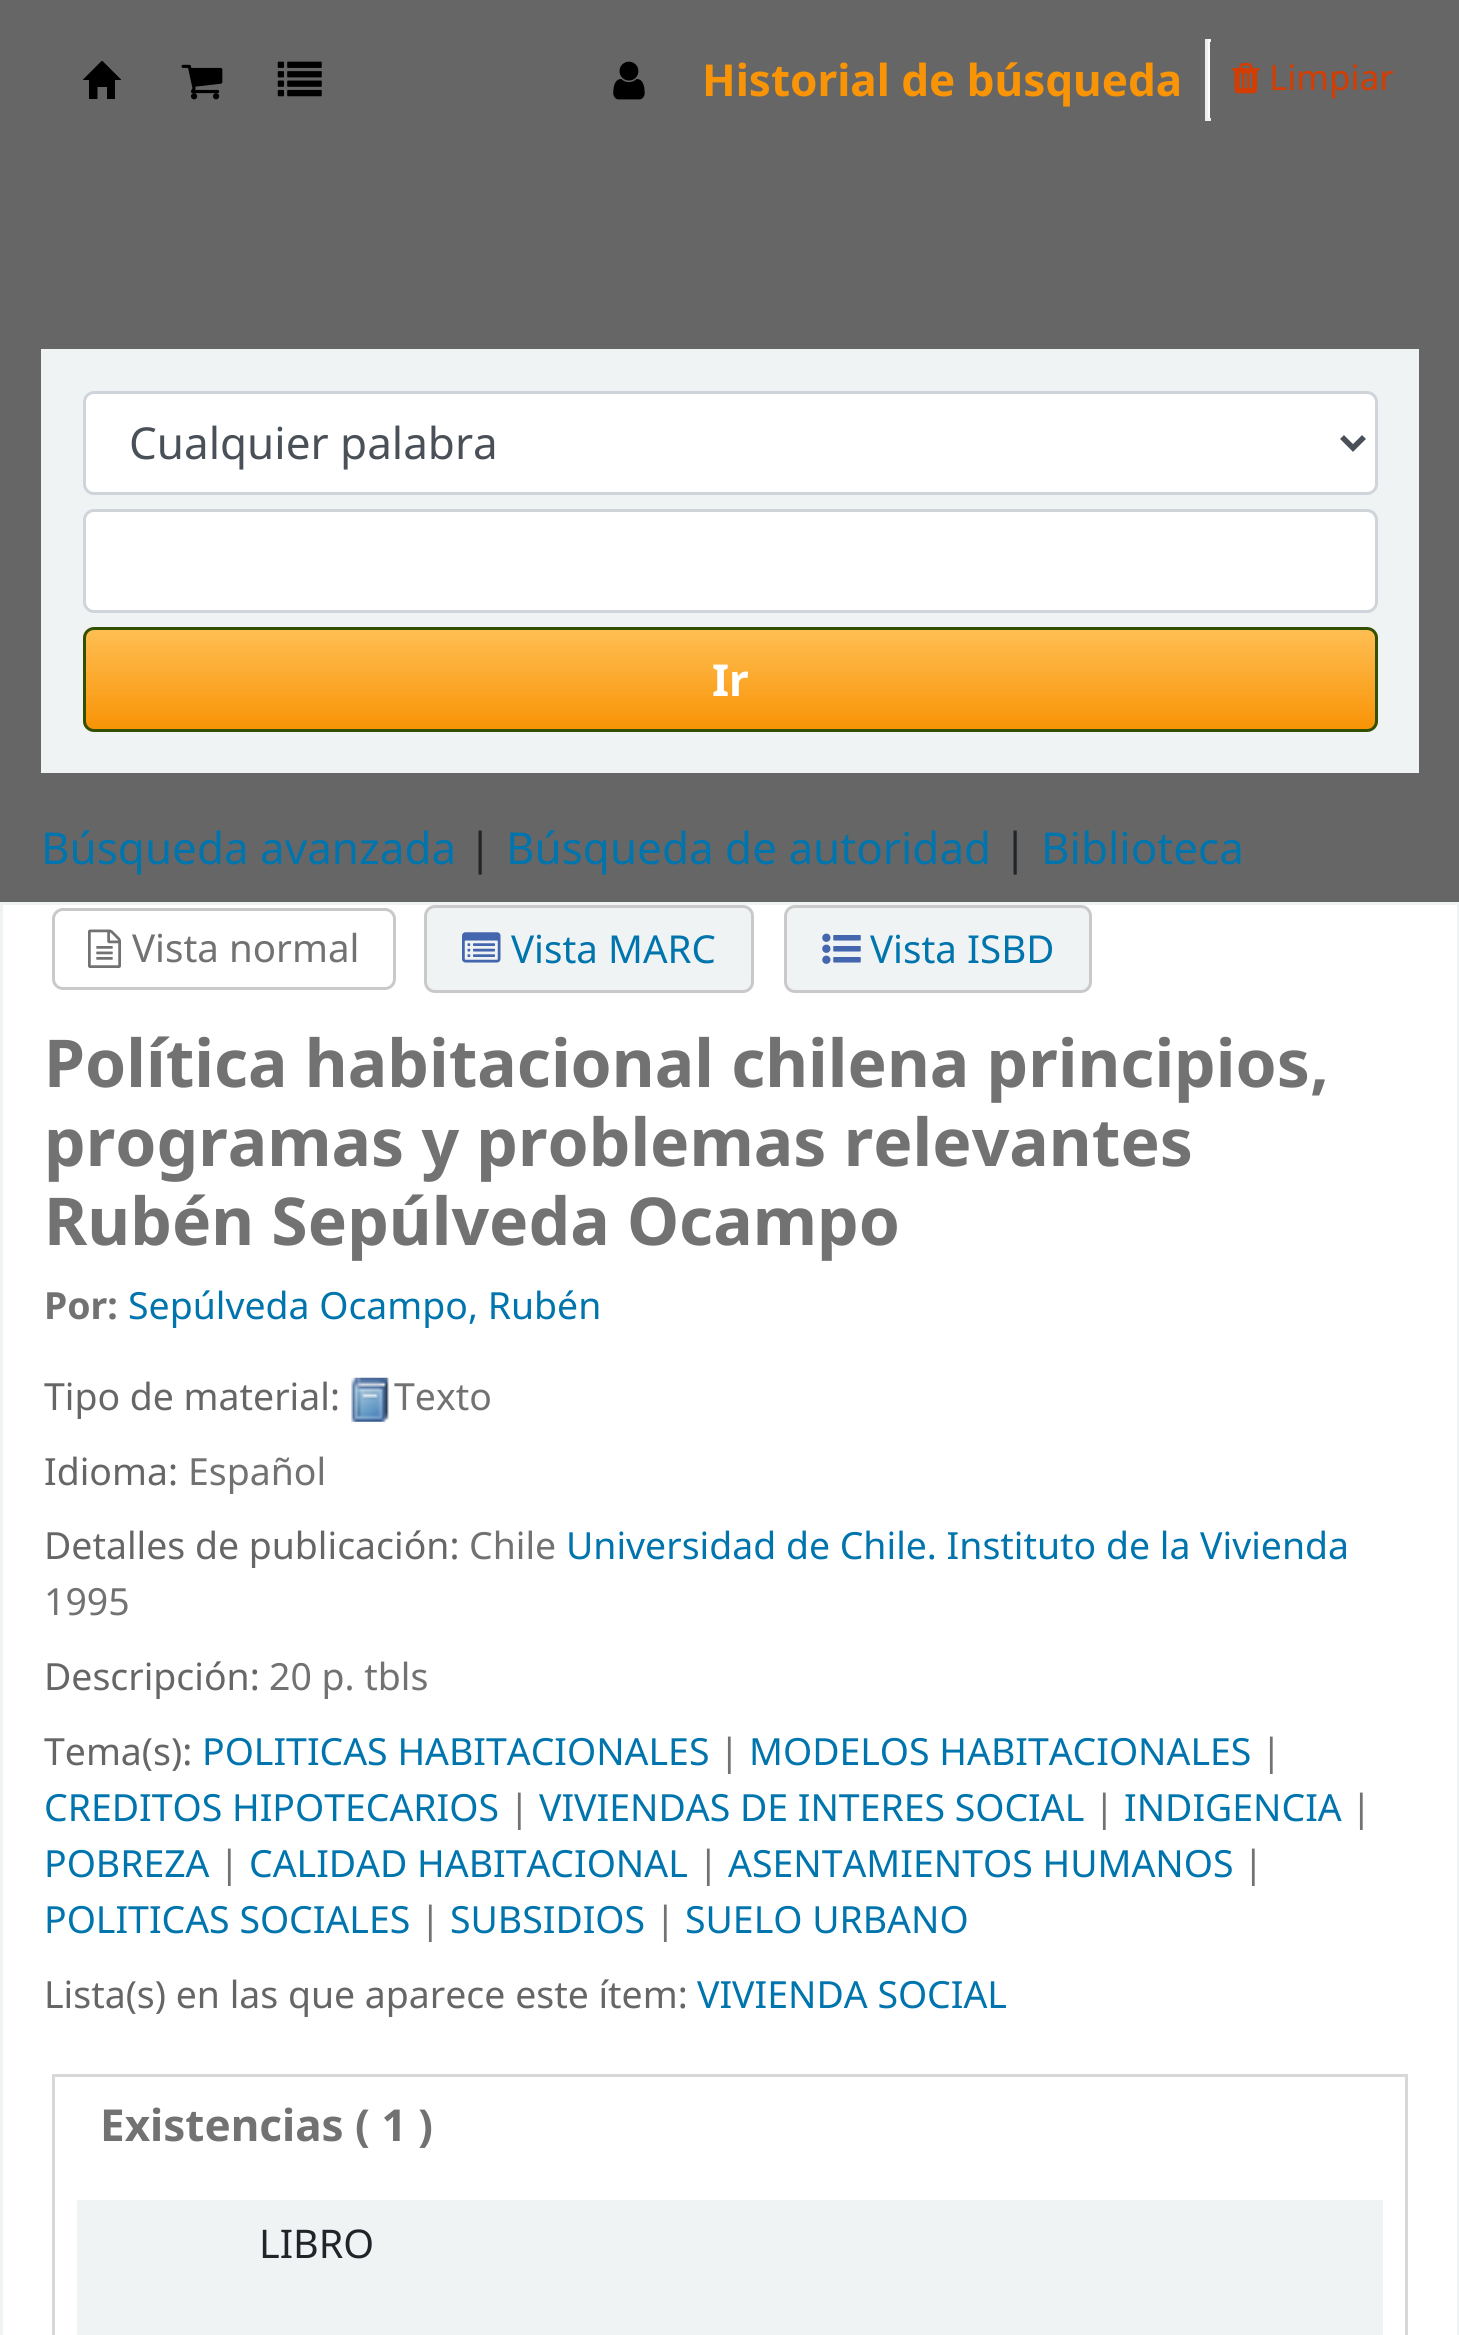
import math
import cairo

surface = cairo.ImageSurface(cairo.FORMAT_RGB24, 1459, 2335)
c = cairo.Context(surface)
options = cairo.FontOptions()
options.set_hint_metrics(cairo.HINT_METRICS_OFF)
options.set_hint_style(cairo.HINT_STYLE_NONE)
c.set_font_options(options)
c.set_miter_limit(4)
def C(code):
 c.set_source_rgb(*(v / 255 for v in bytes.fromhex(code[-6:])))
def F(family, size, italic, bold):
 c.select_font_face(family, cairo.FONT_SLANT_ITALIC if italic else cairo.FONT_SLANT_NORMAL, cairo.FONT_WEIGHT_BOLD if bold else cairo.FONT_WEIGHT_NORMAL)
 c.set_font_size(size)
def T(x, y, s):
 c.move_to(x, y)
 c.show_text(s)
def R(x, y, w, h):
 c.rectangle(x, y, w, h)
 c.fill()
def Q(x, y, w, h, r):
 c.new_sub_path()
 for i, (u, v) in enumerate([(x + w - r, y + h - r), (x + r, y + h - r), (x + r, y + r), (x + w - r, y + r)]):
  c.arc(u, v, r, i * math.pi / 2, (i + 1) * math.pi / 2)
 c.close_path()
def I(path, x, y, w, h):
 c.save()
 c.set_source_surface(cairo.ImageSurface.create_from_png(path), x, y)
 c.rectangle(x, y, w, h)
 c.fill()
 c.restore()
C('666666')
c.paint()
C('000000')
c.new_path()
c.move_to(89,80)
c.line_to(89,99)
c.line_to(97.5,99)
c.line_to(97.5,87)
c.line_to(107,87)
c.line_to(107,99)
c.line_to(115,99)
c.line_to(115,80)
c.close_path()
c.fill()
c.save()
c.rectangle(83,61,38,38)
c.clip()
c.new_path()
c.move_to(121.5,80)
c.line_to(82.5,80)
c.line_to(102,60.5)
c.close_path()
c.fill()
c.restore()
I('1.png',181,64,42,36)
I('2.png',277,61,45,36)
I('3.png',613,61,32,39)
F('Noto Sans',44,0,1)
C('f89406')
T(702,96,'Historial de búsqueda')
C('eeeeee')
R(1205,39,6,3)
C('fcf9fc')
R(1208,39,2,82)
C('eeeeee')
R(1205,118,6,3)
R(1205,39,3,82)
I('4.png',1232,63,28,31)
F('Noto Sans',35,0,0)
C('d43c00')
T(1269,90,'Limpiar')
C('f0f3f3')
R(41,349,1378,424)
C('ffffff')
Q(84.5,392.5,1292,101,9.5)
c.fill_preserve()
C('ced4da')
c.set_line_width(3)
c.stroke()
c.new_path()
c.move_to(1342,437)
c.line_to(1353,448)
c.line_to(1364,437)
C('495057')
c.set_line_width(5.5)
c.stroke()
F('Noto Sans',44,0,0)
T(129,459,'Cualquier palabra')
C('ffffff')
Q(84.5,510.5,1292,101,9.5)
c.fill_preserve()
C('ced4da')
c.set_line_width(3)
c.stroke()
c.save()
Q(83,627,1295,105,11)
c.clip()
gradient = cairo.LinearGradient(730,630,730,729)
gradient.add_color_stop_rgba(0,1,0.745,0.325,1)
gradient.add_color_stop_rgba(1,0.973,0.58,0.024,1)
c.set_source(gradient)
R(83,630,1295,99)
c.restore()
Q(84.5,628.5,1292,102,9.5)
C('335000')
c.stroke()
F('Noto Sans',44,0,1)
C('ffffff')
T(712,696,'Ir')
F('Noto Sans',44,0,0)
C('0074ad')
T(41,864,'Búsqueda avanzada')
C('212529')
T(468,864,'|')
C('0074ad')
T(506,864,'Búsqueda de autoridad')
C('212529')
T(1003,864,'|')
C('0074ad')
T(1041,864,'Biblioteca')
C('ffffff')
c.rectangle(1.5,903.5,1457,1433)
c.fill_preserve()
C('f0f3f3')
c.stroke()
Q(53.5,909.5,341,79,9.5)
C('c9c9c9')
c.stroke()
I('5.png',88,929,33,39)
F('Noto Sans',38.5,0,0)
C('727272')
T(132,962,'Vista normal')
C('f0f3f3')
Q(425.5,906.5,327,85,9.5)
c.fill_preserve()
C('c9c9c9')
c.stroke()
I('6.png',462,932,39,31)
C('0074ad')
T(511,963,'Vista MARC')
C('f0f3f3')
Q(785.5,906.5,305,85,9.5)
c.fill_preserve()
C('c9c9c9')
c.stroke()
I('7.png',822,933,39,31)
C('0074ad')
T(870,963,'Vista ISBD')
F('Noto Sans',66,0,1)
C('727272')
T(44,1087,'Política habitacional chilena principios,')
T(44,1166,'programas y problemas relevantes')
T(44,1245,'Rubén Sepúlveda Ocampo')
F('Noto Sans',37.4,0,1)
T(44,1319,'Por:')
F('Noto Sans',37.4,0,0)
C('0074ad')
T(128,1319,'Sepúlveda Ocampo, Rubén')
C('666666')
T(44,1410,'Tipo de material:')
I('8.png',351,1377,38,45)
C('727272')
T(394,1410,'Texto')
C('666666')
T(44,1485,'Idioma:')
C('727272')
T(188,1485,'Español')
C('666666')
T(44,1559,'Detalles de publicación:')
C('727272')
T(469,1559,'Chile')
C('0074ad')
T(566,1559,'Universidad de Chile. Instituto de la Vivienda')
C('727272')
T(44,1615,'1995')
C('666666')
T(44,1690,'Descripción:')
C('727272')
T(269,1690,'20 p. tbls')
C('666666')
T(44,1765,'Tema(s):')
C('0074ad')
T(202,1765,'POLITICAS HABITACIONALES')
C('727272')
T(719,1765,'|')
C('0074ad')
T(749,1765,'MODELOS HABITACIONALES')
C('727272')
T(1261,1765,'|')
C('0074ad')
T(44,1821,'CREDITOS HIPOTECARIOS')
C('727272')
T(509,1821,'|')
C('0074ad')
T(539,1821,'VIVIENDAS DE INTERES SOCIAL')
C('727272')
T(1094,1821,'|')
C('0074ad')
T(1124,1821,'INDIGENCIA')
C('727272')
T(1351,1821,'|')
C('0074ad')
T(44,1877,'POBREZA')
C('727272')
T(219,1877,'|')
C('0074ad')
T(249,1877,'CALIDAD HABITACIONAL')
C('727272')
T(698,1877,'|')
C('0074ad')
T(728,1877,'ASENTAMIENTOS HUMANOS')
C('727272')
T(1243,1877,'|')
C('0074ad')
T(44,1933,'POLITICAS SOCIALES')
C('727272')
T(420,1933,'|')
C('0074ad')
T(450,1933,'SUBSIDIOS')
C('727272')
T(655,1933,'|')
C('0074ad')
T(685,1933,'SUELO URBANO')
C('666666')
T(44,2008,'Lista(s) en las que aparece este ítem:')
C('0074ad')
T(697,2008,'VIVIENDA SOCIAL')
c.rectangle(53.5,2176.5,1353,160)
C('d8d8d8')
c.stroke()
C('ffffff')
R(55,2175,1350,3)
C('d8d8d8')
R(52,2074,1356,3)
R(1405,2074,3,104)
R(52,2074,3,104)
F('Noto Sans',44,0,1)
C('727272')
T(100,2141,'Existencias ( 1 )')
C('f0f3f3')
R(77,2200,1306,135)
F('Noto Sans',39.5,0,0)
C('212529')
T(259,2258,'LIBRO')
surface.write_to_png('o.png')
